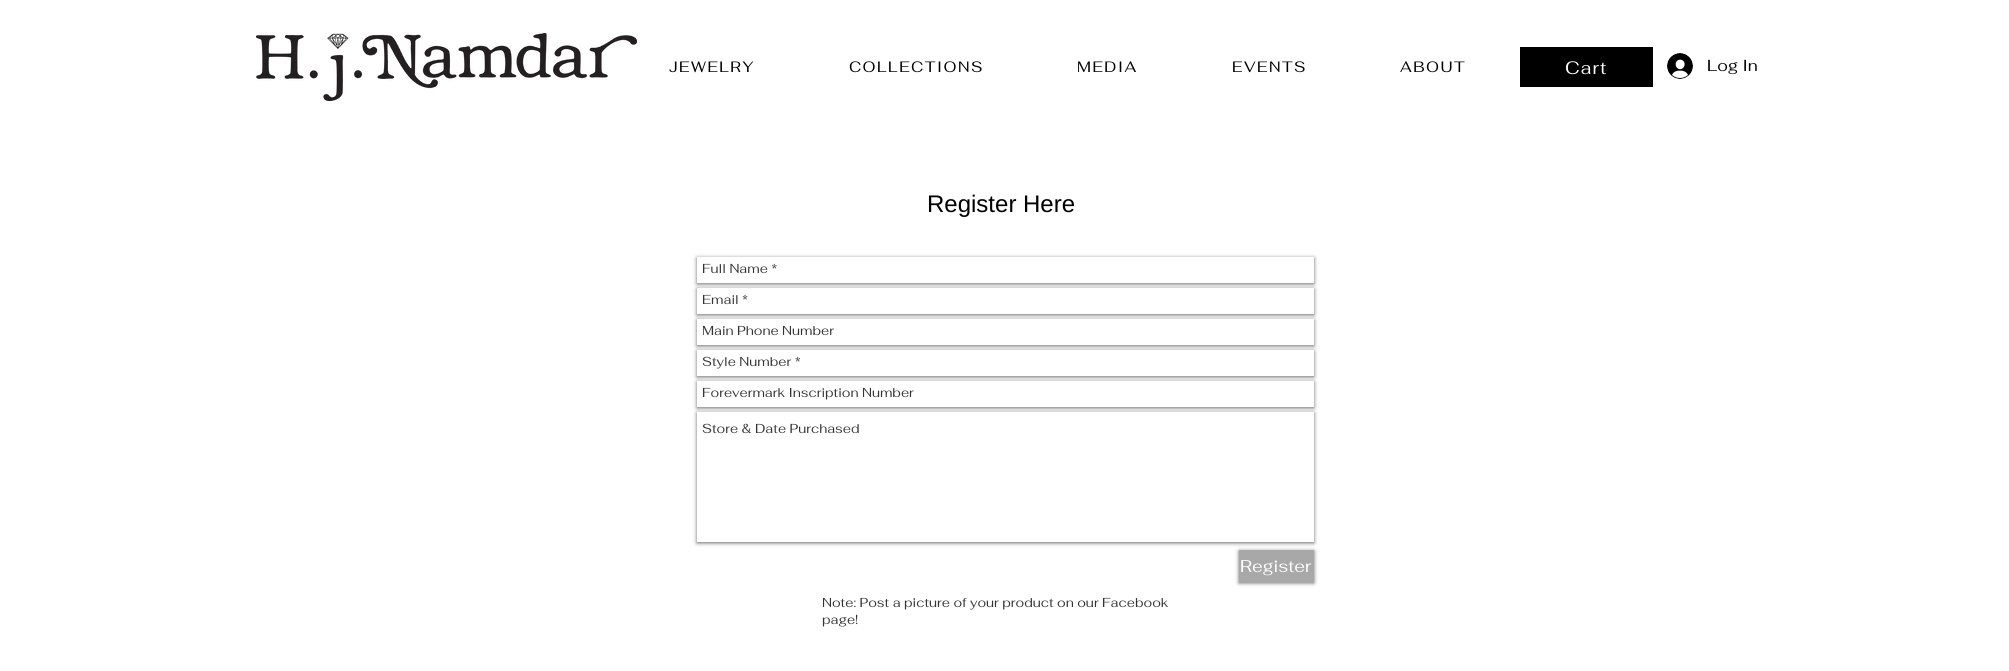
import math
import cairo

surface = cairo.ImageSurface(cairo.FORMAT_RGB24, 2009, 671)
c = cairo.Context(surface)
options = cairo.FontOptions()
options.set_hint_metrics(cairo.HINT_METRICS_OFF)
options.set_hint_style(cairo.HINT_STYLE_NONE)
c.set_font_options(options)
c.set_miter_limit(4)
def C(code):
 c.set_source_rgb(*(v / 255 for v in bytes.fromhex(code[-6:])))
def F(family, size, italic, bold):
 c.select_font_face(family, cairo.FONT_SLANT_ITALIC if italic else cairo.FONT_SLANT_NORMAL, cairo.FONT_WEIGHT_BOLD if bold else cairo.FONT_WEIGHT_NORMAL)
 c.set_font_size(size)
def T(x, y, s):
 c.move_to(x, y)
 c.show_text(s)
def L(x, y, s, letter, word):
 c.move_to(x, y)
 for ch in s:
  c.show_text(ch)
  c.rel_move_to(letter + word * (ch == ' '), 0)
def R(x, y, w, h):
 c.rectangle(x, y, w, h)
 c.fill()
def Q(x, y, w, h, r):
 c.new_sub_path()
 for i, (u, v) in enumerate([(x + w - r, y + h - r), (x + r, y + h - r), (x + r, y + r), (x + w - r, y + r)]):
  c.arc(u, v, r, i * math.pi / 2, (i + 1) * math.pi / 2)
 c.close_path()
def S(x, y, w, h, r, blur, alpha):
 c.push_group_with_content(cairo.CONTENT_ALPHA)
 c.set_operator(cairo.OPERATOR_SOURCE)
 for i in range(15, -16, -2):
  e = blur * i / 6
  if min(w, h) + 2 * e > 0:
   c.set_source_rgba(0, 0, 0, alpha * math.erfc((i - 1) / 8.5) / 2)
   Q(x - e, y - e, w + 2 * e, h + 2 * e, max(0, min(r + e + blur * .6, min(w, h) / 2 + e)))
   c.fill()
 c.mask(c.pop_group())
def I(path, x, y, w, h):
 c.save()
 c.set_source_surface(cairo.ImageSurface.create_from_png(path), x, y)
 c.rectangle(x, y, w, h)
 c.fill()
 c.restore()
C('ffffff')
c.paint()
I('1.png',256,33,381,68)
F('Fahkwang',15,0,0)
C('000000')
L(669,72,'JEWELRY',1.5,0)
L(849,72,'COLLECTIONS',1.5,0)
L(1077,72,'MEDIA',1.5,0)
L(1232,72,'EVENTS',1.5,0)
L(1400,72,'ABOUT',1.5,0)
R(1520,47,133,40)
F('Fahkwang',18,0,0)
C('ffffff')
L(1565,74,'Cart',1,0)
I('2.png',1667,53,26,26)
F('Fahkwang',16,0,0)
C('000000')
T(1707,71,'Log In')
F('Liberation Sans',24,0,0)
T(927,212,'Register Here')
c.save()
c.set_fill_rule(cairo.FILL_RULE_EVEN_ODD)
c.new_path()
c.move_to(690,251)
c.line_to(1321,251)
c.line_to(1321,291)
c.line_to(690,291)
c.close_path()
c.move_to(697,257)
c.line_to(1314,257)
c.line_to(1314,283)
c.line_to(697,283)
c.close_path()
c.clip()
C('000000')
S(697,258,617,26,0,2,.6)
c.restore()
F('Fahkwang',13,0,0)
C('333333')
T(702,273,'Full Name *')
C('000000')
S(697,289,617,26,0,2,.6)
C('ffffff')
R(697,288,617,26)
C('333333')
T(702,304,'Email *')
C('000000')
S(697,320,617,26,0,2,.6)
C('ffffff')
R(697,319,617,26)
C('333333')
T(702,335,'Main Phone Number')
C('000000')
S(697,351,617,26,0,2,.6)
C('ffffff')
R(697,350,617,26)
C('333333')
T(702,366,'Style Number *')
C('000000')
S(697,382,617,26,0,2,.6)
C('ffffff')
R(697,381,617,26)
C('333333')
T(702,397,'Forevermark Inscription Number')
C('000000')
S(697,413,617,130,0,2,.6)
C('ffffff')
R(697,412,617,130)
C('333333')
T(702,433,'Store & Date Purchased')
C('000000')
S(1239,551,75,32,0,2,.6)
C('a8a8a8')
R(1239,550,75,32)
F('Fahkwang',17,0,0)
C('ffffff')
T(1240,572,'Register')
F('Fahkwang',13,0,0)
C('333333')
T(822,607,'Note: Post a picture of your product on our Facebook')
T(822,624,'page!')
surface.write_to_png('o.png')
